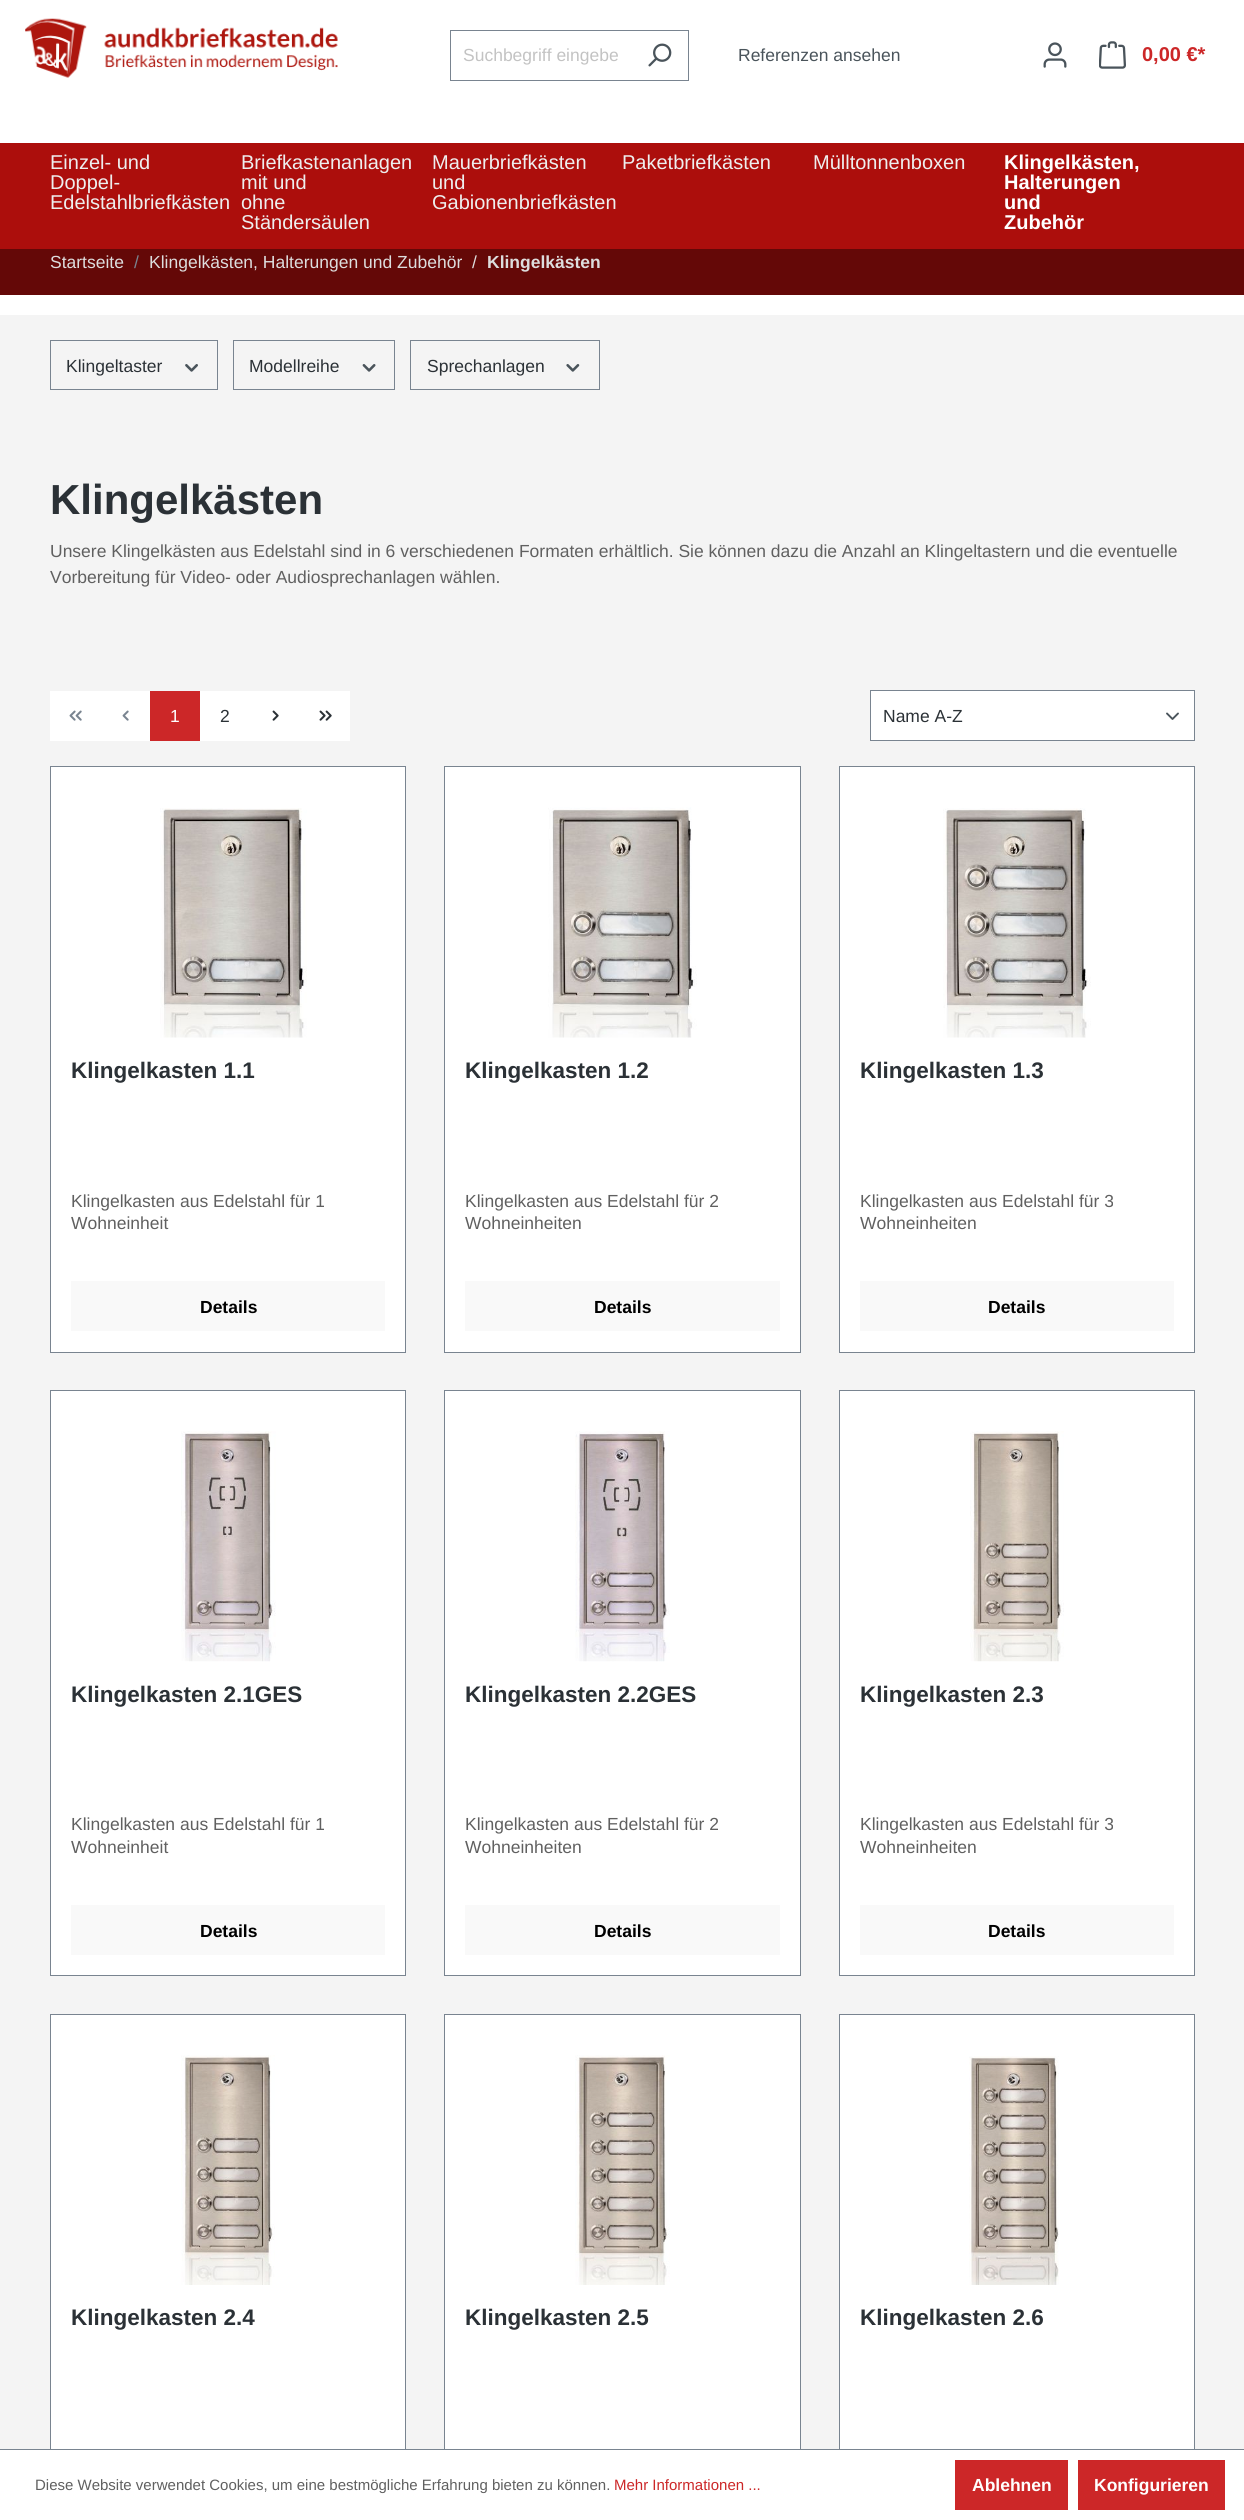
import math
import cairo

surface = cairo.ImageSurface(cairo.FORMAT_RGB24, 1244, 2520)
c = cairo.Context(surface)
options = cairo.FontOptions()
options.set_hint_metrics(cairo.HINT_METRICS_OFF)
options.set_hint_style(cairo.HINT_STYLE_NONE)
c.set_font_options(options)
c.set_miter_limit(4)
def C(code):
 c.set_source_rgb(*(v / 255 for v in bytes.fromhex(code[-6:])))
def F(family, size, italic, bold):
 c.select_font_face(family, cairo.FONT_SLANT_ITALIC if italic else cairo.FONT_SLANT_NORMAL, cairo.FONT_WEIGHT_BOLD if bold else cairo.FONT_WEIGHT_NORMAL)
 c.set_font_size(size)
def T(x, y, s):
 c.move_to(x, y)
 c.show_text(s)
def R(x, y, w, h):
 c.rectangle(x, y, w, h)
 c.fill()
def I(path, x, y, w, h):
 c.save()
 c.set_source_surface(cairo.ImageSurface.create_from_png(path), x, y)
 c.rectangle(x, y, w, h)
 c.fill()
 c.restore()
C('ffffff')
c.paint()
I('1.png',25,18,313,60)
C('798490')
R(450,30,239,1)
R(450,80,181,1)
R(450,30,1,51)
F('Liberation Sans',17.5,0,0)
C('c3c3c3')
T(463,61,'Suchbegriff eingebe')
C('798490')
R(688,30,1,51)
R(630,80,59,1)
I('2.png',648,43,24,24)
C('4a545b')
T(738,61,'Referenzen ansehen')
I('3.png',1043,42,24,26)
I('4.png',1099,41,27,28)
F('Liberation Sans',20,0,1)
C('cc2728')
T(1142,61,'0,00 €*')
C('ac0e0c')
R(0,143,1244,106)
F('Liberation Sans',20,0,0)
C('eeeeee')
T(50,169,'Einzel- und')
T(50,189,'Doppel-')
T(50,209,'Edelstahlbriefkästen')
T(241,169,'Briefkastenanlagen')
T(241,189,'mit und')
T(241,209,'ohne')
T(241,229,'Ständersäulen')
T(432,169,'Mauerbriefkästen')
T(432,189,'und')
T(432,209,'Gabionenbriefkästen')
T(622,169,'Paketbriefkästen')
T(813,169,'Mülltonnenboxen')
F('Liberation Sans',20,0,1)
C('ffffff')
T(1004,169,'Klingelkästen,')
T(1004,189,'Halterungen')
T(1004,209,'und')
T(1004,229,'Zubehör')
C('640807')
R(0,249,1244,46)
F('Liberation Sans',17.5,0,0)
C('dddddd')
T(50,268,'Startseite')
C('798490')
T(134,268,'/')
C('dddddd')
T(149,268,'Klingelkästen, Halterungen und Zubehör')
T(472,268,'/')
F('Liberation Sans',17.5,0,1)
T(487,268,'Klingelkästen')
C('f4f4f4')
R(0,315,1244,2134)
c.rectangle(50.5,340.5,167,49)
C('798490')
c.set_line_width(1)
c.stroke()
F('Liberation Sans',17.5,0,0)
C('2b3136')
T(66,372,'Klingeltaster')
I('5.png',185,364,13,8)
c.rectangle(233.5,340.5,161,49)
C('798490')
c.stroke()
C('2b3136')
T(249,372,'Modellreihe')
I('6.png',362,364,14,8)
c.rectangle(410.5,340.5,189,49)
C('798490')
c.stroke()
C('2b3136')
T(427,372,'Sprechanlagen')
I('7.png',566,364,14,8)
F('Liberation Sans',42,0,1)
T(50,514,'Klingelkästen')
F('Liberation Sans',17.5,0,0)
C('606060')
T(50,557,'Unsere Klingelkästen aus Edelstahl sind in 6 verschiedenen Formaten erhältlich. Sie können dazu die Anzahl an Klingeltastern und die eventuelle')
T(50,583,'Vorbereitung für Video- oder Audiosprechanlagen wählen.')
C('ffffff')
R(50,691,100,50)
I('8.png',69,710,13,11)
C('cc2728')
R(150,691,50,50)
C('ffffff')
T(170,722,'1')
R(200,691,150,50)
C('2b3136')
T(220,722,'2')
I('9.png',122,710,7,11)
I('10.png',272,710,7,11)
I('11.png',319,710,13,11)
C('ffffff')
R(871,691,323,49)
c.new_path()
c.move_to(1167,713.5)
c.line_to(1172.5,719)
c.line_to(1178,713.5)
C('4a545b')
c.set_line_width(1.9)
c.set_line_cap(cairo.LINE_CAP_ROUND)
c.set_line_join(cairo.LINE_JOIN_ROUND)
c.stroke()
c.rectangle(870.5,690.5,324,50)
C('798490')
c.set_line_width(1)
c.set_line_cap(cairo.LINE_CAP_BUTT)
c.set_line_join(cairo.LINE_JOIN_MITER)
c.stroke()
C('2b3136')
T(883,722,'Name A-Z')
C('ffffff')
c.rectangle(50.5,766.5,355,586)
c.fill_preserve()
C('798490')
c.stroke()
I('12.png',160,808,147,230)
F('Liberation Sans',22.5,0,1)
C('2b3136')
T(71,1078,'Klingelkasten 1.1')
F('Liberation Sans',17.5,0,0)
C('606060')
T(71,1207,'Klingelkasten aus Edelstahl für 1')
T(71,1229,'Wohneinheit')
C('f9f9f9')
R(71,1281,314,50)
F('Liberation Sans',17.5,0,1)
C('000000')
T(200,1313,'Details')
C('ffffff')
c.rectangle(444.5,766.5,356,586)
c.fill_preserve()
C('798490')
c.stroke()
I('13.png',548,807,149,231)
F('Liberation Sans',22.5,0,1)
C('2b3136')
T(465,1078,'Klingelkasten 1.2')
F('Liberation Sans',17.5,0,0)
C('606060')
T(465,1207,'Klingelkasten aus Edelstahl für 2')
T(465,1229,'Wohneinheiten')
C('f9f9f9')
R(465,1281,315,50)
F('Liberation Sans',17.5,0,1)
C('000000')
T(594,1313,'Details')
C('ffffff')
c.rectangle(839.5,766.5,355,586)
c.fill_preserve()
C('798490')
c.stroke()
I('14.png',943,808,148,230)
F('Liberation Sans',22.5,0,1)
C('2b3136')
T(860,1078,'Klingelkasten 1.3')
F('Liberation Sans',17.5,0,0)
C('606060')
T(860,1207,'Klingelkasten aus Edelstahl für 3')
T(860,1229,'Wohneinheiten')
C('f9f9f9')
R(860,1281,314,50)
F('Liberation Sans',17.5,0,1)
C('000000')
T(988,1313,'Details')
C('ffffff')
c.rectangle(50.5,1390.5,355,585)
c.fill_preserve()
C('798490')
c.stroke()
I('15.png',181,1431,95,231)
F('Liberation Sans',22.5,0,1)
C('2b3136')
T(71,1702,'Klingelkasten 2.1GES')
F('Liberation Sans',17.5,0,0)
C('606060')
T(71,1830,'Klingelkasten aus Edelstahl für 1')
T(71,1853,'Wohneinheit')
C('f9f9f9')
R(71,1905,314,50)
F('Liberation Sans',17.5,0,1)
C('000000')
T(200,1937,'Details')
C('ffffff')
c.rectangle(444.5,1390.5,356,585)
c.fill_preserve()
C('798490')
c.stroke()
I('16.png',575,1431,95,231)
F('Liberation Sans',22.5,0,1)
C('2b3136')
T(465,1702,'Klingelkasten 2.2GES')
F('Liberation Sans',17.5,0,0)
C('606060')
T(465,1830,'Klingelkasten aus Edelstahl für 2')
T(465,1853,'Wohneinheiten')
C('f9f9f9')
R(465,1905,315,50)
F('Liberation Sans',17.5,0,1)
C('000000')
T(594,1937,'Details')
C('ffffff')
c.rectangle(839.5,1390.5,355,585)
c.fill_preserve()
C('798490')
c.stroke()
I('17.png',970,1431,94,231)
F('Liberation Sans',22.5,0,1)
C('2b3136')
T(860,1702,'Klingelkasten 2.3')
F('Liberation Sans',17.5,0,0)
C('606060')
T(860,1830,'Klingelkasten aus Edelstahl für 3')
T(860,1853,'Wohneinheiten')
C('f9f9f9')
R(860,1905,314,50)
F('Liberation Sans',17.5,0,1)
C('000000')
T(988,1937,'Details')
C('ffffff')
R(51,2015,354,434)
c.rectangle(50.5,2014.5,355,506)
C('798490')
c.stroke()
I('18.png',181,2055,94,230)
F('Liberation Sans',22.5,0,1)
C('2b3136')
T(71,2325,'Klingelkasten 2.4')
C('ffffff')
R(445,2015,355,434)
c.rectangle(444.5,2014.5,356,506)
C('798490')
c.stroke()
I('19.png',575,2055,95,230)
C('2b3136')
T(465,2325,'Klingelkasten 2.5')
C('ffffff')
R(840,2015,354,434)
c.rectangle(839.5,2014.5,355,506)
C('798490')
c.stroke()
I('20.png',969,2056,90,229)
C('2b3136')
T(860,2325,'Klingelkasten 2.6')
C('ffffff')
R(50,2450,1145,70)
C('798490')
R(0,2449,1244,1)
F('Liberation Sans',15,0,0)
C('606060')
T(35,2490,'Diese Website verwendet Cookies, um eine bestmögliche Erfahrung bieten zu können.')
C('cc2728')
T(614,2490,'Mehr Informationen ...')
R(955,2460,113,50)
F('Liberation Sans',17.5,0,1)
C('ffffff')
T(972,2491,'Ablehnen')
C('cc2728')
R(1078,2460,147,50)
C('ffffff')
T(1094,2491,'Konfigurieren')
surface.write_to_png('o.png')
